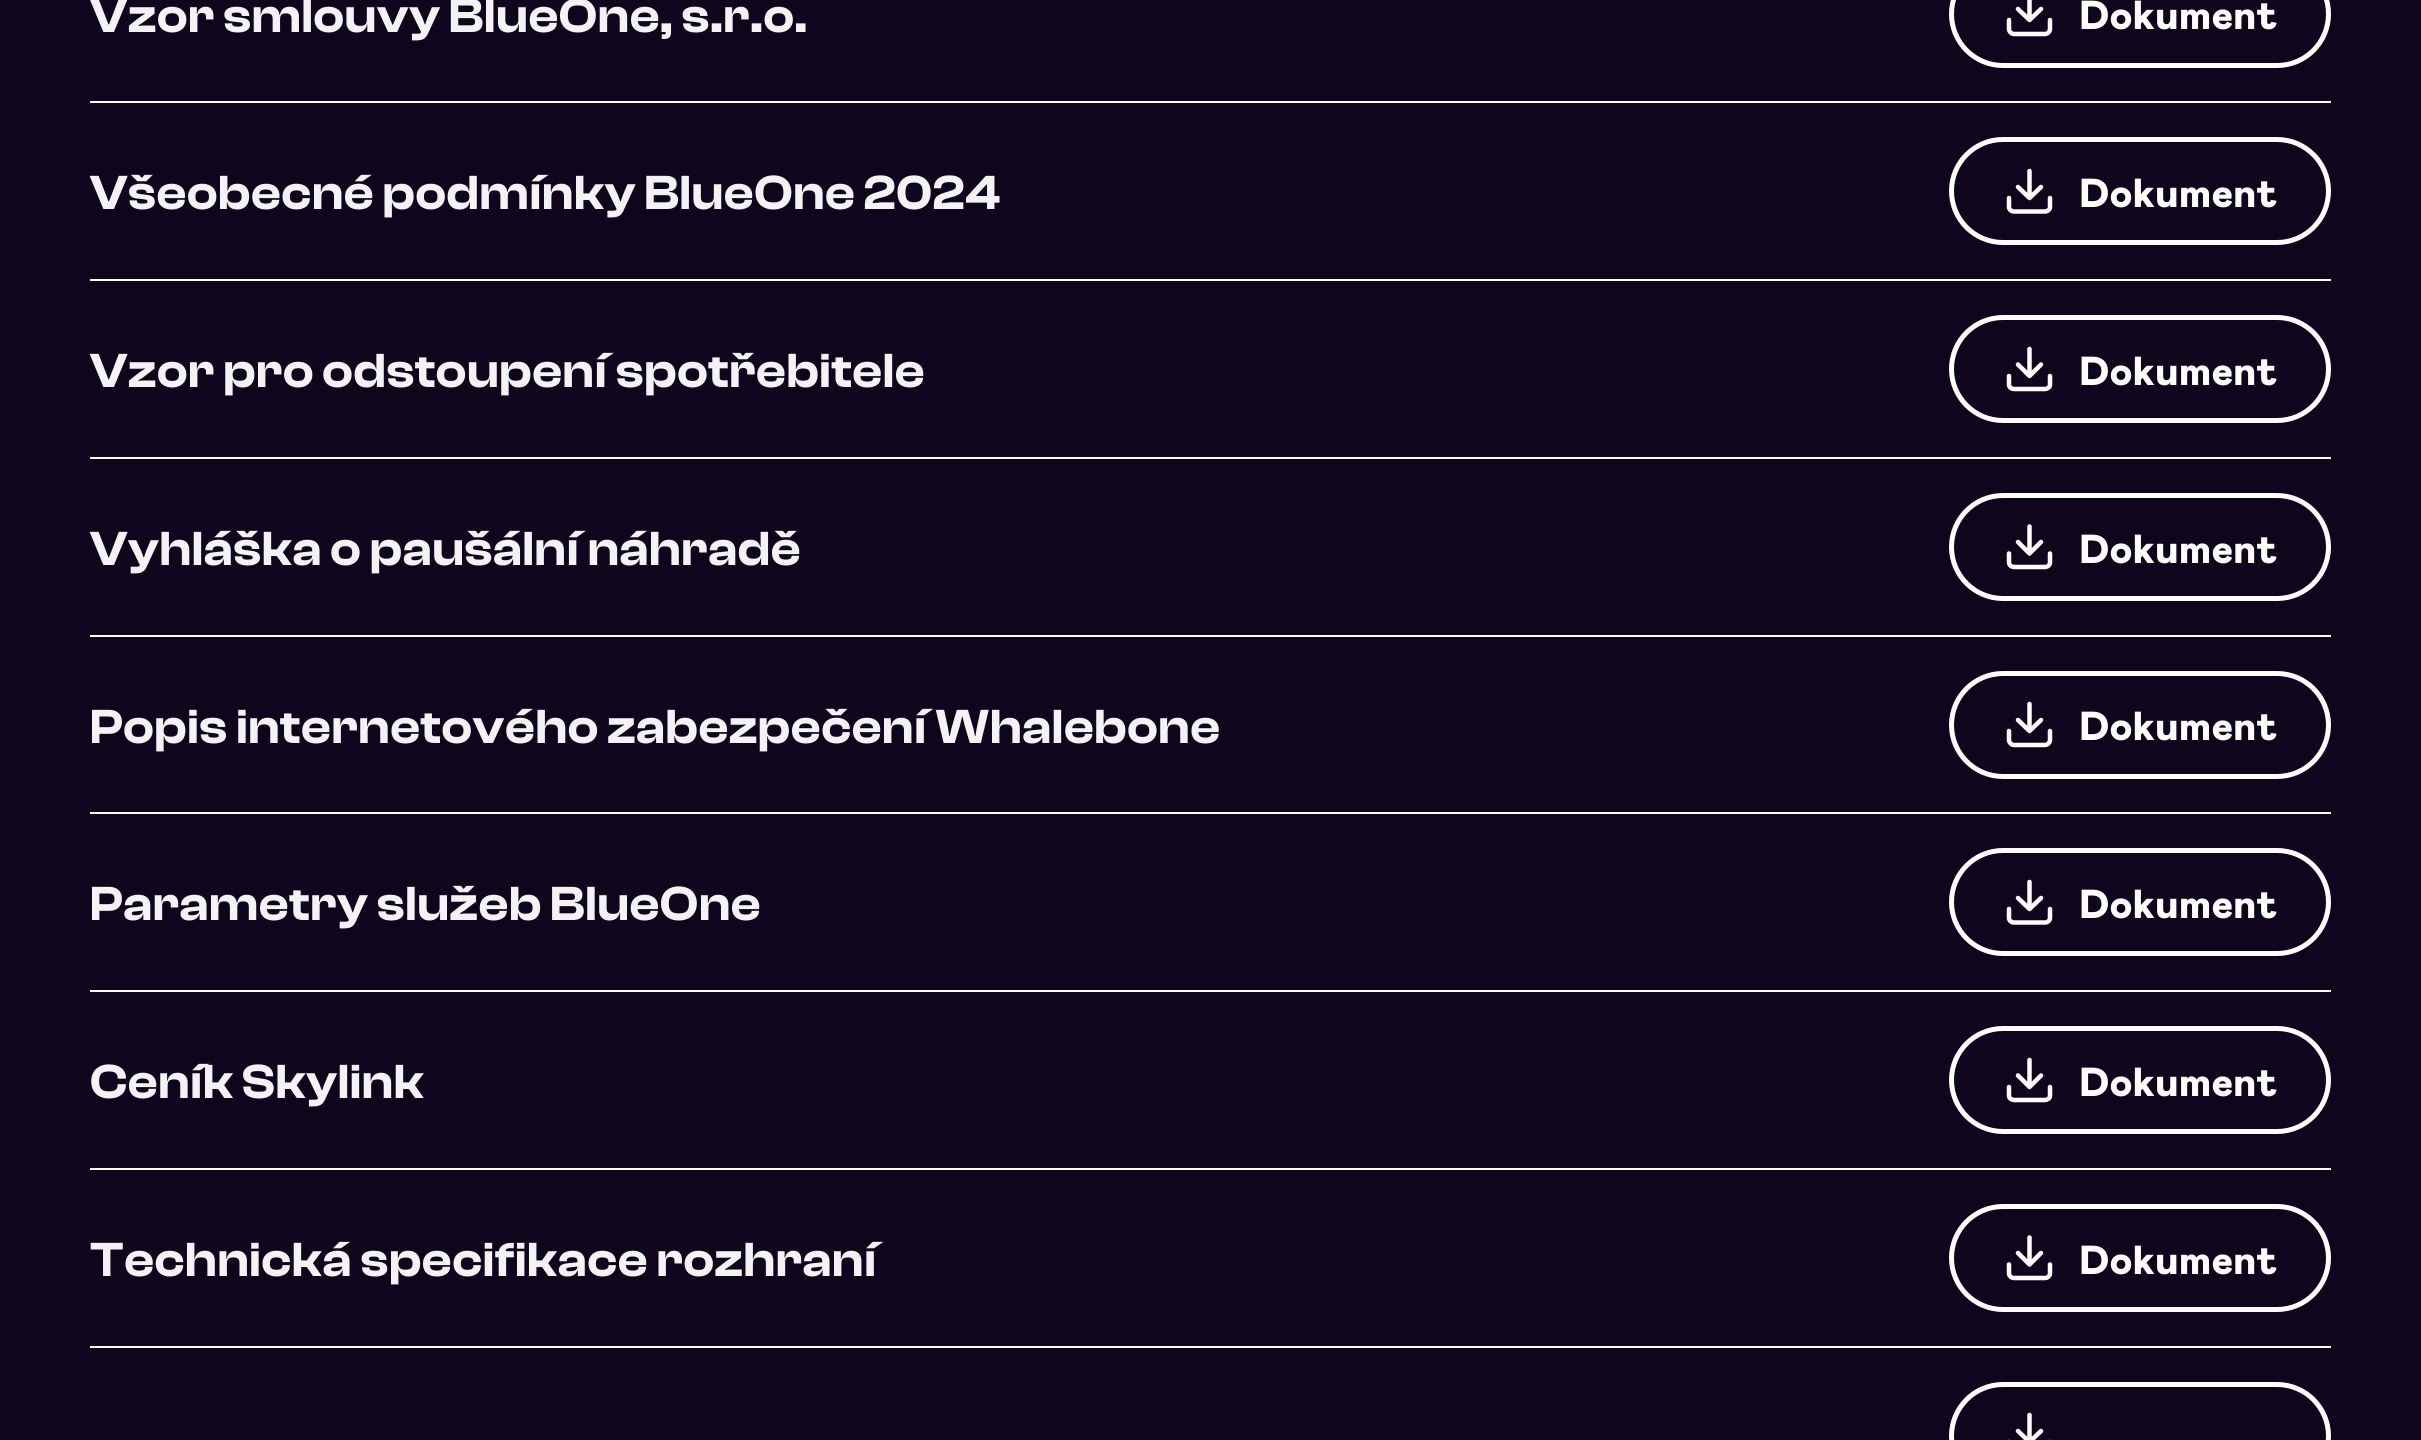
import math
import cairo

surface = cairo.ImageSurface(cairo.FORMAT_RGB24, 2421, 1440)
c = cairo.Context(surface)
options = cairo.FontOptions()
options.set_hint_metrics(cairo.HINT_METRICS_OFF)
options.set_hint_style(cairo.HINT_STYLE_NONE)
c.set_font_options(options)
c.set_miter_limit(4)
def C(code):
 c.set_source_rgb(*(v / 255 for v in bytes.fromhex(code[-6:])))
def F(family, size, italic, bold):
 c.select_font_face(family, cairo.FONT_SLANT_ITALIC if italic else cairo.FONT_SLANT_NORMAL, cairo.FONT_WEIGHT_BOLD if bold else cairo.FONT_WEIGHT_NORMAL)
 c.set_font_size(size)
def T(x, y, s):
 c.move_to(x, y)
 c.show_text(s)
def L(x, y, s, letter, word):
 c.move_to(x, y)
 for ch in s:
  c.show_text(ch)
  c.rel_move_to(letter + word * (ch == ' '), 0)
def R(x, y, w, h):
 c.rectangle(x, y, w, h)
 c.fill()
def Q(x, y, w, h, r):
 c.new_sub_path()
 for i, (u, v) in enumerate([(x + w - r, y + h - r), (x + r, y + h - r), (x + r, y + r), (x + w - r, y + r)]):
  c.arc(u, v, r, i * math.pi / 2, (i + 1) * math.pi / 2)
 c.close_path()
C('0f051d')
c.paint()
C('ffffff')
R(90,101,2241,2)
F('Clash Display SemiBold',49.5,0,0)
C('f3f2f4')
L(90,32,'Vzor smlouvy BlueOne, s.r.o.',.7,0)
Q(1951.5,-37.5,377,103,51.5)
C('ffffff')
c.set_line_width(5)
c.stroke()
c.new_path()
c.move_to(2050,20)
c.line_to(2050,29)
c.curve_to(2050,31.5,2047.5,34,2045,34)
c.line_to(2014,34)
c.curve_to(2011.5,34,2009,31.5,2009,29)
c.line_to(2009,20)
c.move_to(2018,9)
c.line_to(2029.5,20)
c.line_to(2041,9)
c.move_to(2029.5,20)
c.line_to(2029.5,-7)
c.set_line_width(4.5)
c.set_line_cap(cairo.LINE_CAP_ROUND)
c.set_line_join(cairo.LINE_JOIN_ROUND)
c.stroke()
F('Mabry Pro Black',40.5,0,0)
T(2079,29,'Dokument')
R(90,279,2241,2)
F('Clash Display SemiBold',49.5,0,0)
C('f3f2f4')
L(90,209,'Všeobecné podmínky BlueOne 2024',.7,0)
Q(1951.5,139.5,377,103,51.5)
C('ffffff')
c.set_line_width(5)
c.set_line_cap(cairo.LINE_CAP_BUTT)
c.set_line_join(cairo.LINE_JOIN_MITER)
c.stroke()
c.new_path()
c.move_to(2050,198)
c.line_to(2050,207)
c.curve_to(2050,209.5,2047.5,211.5,2045,211.5)
c.line_to(2014,211.5)
c.curve_to(2011.5,211.5,2009,209.5,2009,207)
c.line_to(2009,198)
c.move_to(2018,187)
c.line_to(2029.5,198)
c.line_to(2041,187)
c.move_to(2029.5,198)
c.line_to(2029.5,171)
c.set_line_width(4.5)
c.set_line_cap(cairo.LINE_CAP_ROUND)
c.set_line_join(cairo.LINE_JOIN_ROUND)
c.stroke()
F('Mabry Pro Black',40.5,0,0)
T(2079,207,'Dokument')
R(90,457,2241,2)
F('Clash Display SemiBold',49.5,0,0)
C('f3f2f4')
L(90,387,'Vzor pro odstoupení spotřebitele',.7,0)
Q(1951.5,317.5,377,103,51.5)
C('ffffff')
c.set_line_width(5)
c.set_line_cap(cairo.LINE_CAP_BUTT)
c.set_line_join(cairo.LINE_JOIN_MITER)
c.stroke()
c.new_path()
c.move_to(2050,376)
c.line_to(2050,385)
c.curve_to(2050,387,2047.5,389,2045,389)
c.line_to(2014,389)
c.curve_to(2011.5,389,2009,387,2009,385)
c.line_to(2009,376)
c.move_to(2018,364.5)
c.line_to(2029.5,376)
c.line_to(2041,364.5)
c.move_to(2029.5,376)
c.line_to(2029.5,349)
c.set_line_width(4.5)
c.set_line_cap(cairo.LINE_CAP_ROUND)
c.set_line_join(cairo.LINE_JOIN_ROUND)
c.stroke()
F('Mabry Pro Black',40.5,0,0)
T(2079,385,'Dokument')
R(90,635,2241,2)
F('Clash Display SemiBold',49.5,0,0)
C('f3f2f4')
L(90,565,'Vyhláška o paušální náhradě',.7,0)
Q(1951.5,495.5,377,103,51.5)
C('ffffff')
c.set_line_width(5)
c.set_line_cap(cairo.LINE_CAP_BUTT)
c.set_line_join(cairo.LINE_JOIN_MITER)
c.stroke()
c.new_path()
c.move_to(2050,553.5)
c.line_to(2050,562.5)
c.curve_to(2050,565,2047.5,567,2045,567)
c.line_to(2014,567)
c.curve_to(2011.5,567,2009,565,2009,562.5)
c.line_to(2009,553.5)
c.move_to(2018,542)
c.line_to(2029.5,553.5)
c.line_to(2041,542)
c.move_to(2029.5,553.5)
c.line_to(2029.5,526.5)
c.set_line_width(4.5)
c.set_line_cap(cairo.LINE_CAP_ROUND)
c.set_line_join(cairo.LINE_JOIN_ROUND)
c.stroke()
F('Mabry Pro Black',40.5,0,0)
T(2079,563,'Dokument')
R(90,812,2241,2)
F('Clash Display SemiBold',49.5,0,0)
C('f3f2f4')
L(90,743,'Popis internetového zabezpečení Whalebone',.7,0)
Q(1951.5,673.5,377,103,51.5)
C('ffffff')
c.set_line_width(5)
c.set_line_cap(cairo.LINE_CAP_BUTT)
c.set_line_join(cairo.LINE_JOIN_MITER)
c.stroke()
c.new_path()
c.move_to(2050,731)
c.line_to(2050,740)
c.curve_to(2050,742.5,2047.5,745,2045,745)
c.line_to(2014,745)
c.curve_to(2011.5,745,2009,742.5,2009,740)
c.line_to(2009,731)
c.move_to(2018,720)
c.line_to(2029.5,731)
c.line_to(2041,720)
c.move_to(2029.5,731)
c.line_to(2029.5,704)
c.set_line_width(4.5)
c.set_line_cap(cairo.LINE_CAP_ROUND)
c.set_line_join(cairo.LINE_JOIN_ROUND)
c.stroke()
F('Mabry Pro Black',40.5,0,0)
T(2079,740,'Dokument')
R(90,990,2241,2)
F('Clash Display SemiBold',49.5,0,0)
C('f3f2f4')
L(90,920,'Parametry služeb BlueOne',.7,0)
Q(1951.5,850.5,377,103,51.5)
C('ffffff')
c.set_line_width(5)
c.set_line_cap(cairo.LINE_CAP_BUTT)
c.set_line_join(cairo.LINE_JOIN_MITER)
c.stroke()
c.new_path()
c.move_to(2050,909)
c.line_to(2050,918)
c.curve_to(2050,920.5,2047.5,922.5,2045,922.5)
c.line_to(2014,922.5)
c.curve_to(2011.5,922.5,2009,920.5,2009,918)
c.line_to(2009,909)
c.move_to(2018,898)
c.line_to(2029.5,909)
c.line_to(2041,898)
c.move_to(2029.5,909)
c.line_to(2029.5,882)
c.set_line_width(4.5)
c.set_line_cap(cairo.LINE_CAP_ROUND)
c.set_line_join(cairo.LINE_JOIN_ROUND)
c.stroke()
F('Mabry Pro Black',40.5,0,0)
T(2079,918,'Dokument')
R(90,1168,2241,2)
F('Clash Display SemiBold',49.5,0,0)
C('f3f2f4')
L(90,1098,'Ceník Skylink',.7,0)
Q(1951.5,1028.5,377,103,51.5)
C('ffffff')
c.set_line_width(5)
c.set_line_cap(cairo.LINE_CAP_BUTT)
c.set_line_join(cairo.LINE_JOIN_MITER)
c.stroke()
c.new_path()
c.move_to(2050,1087)
c.line_to(2050,1096)
c.curve_to(2050,1098,2047.5,1100,2045,1100)
c.line_to(2014,1100)
c.curve_to(2011.5,1100,2009,1098,2009,1096)
c.line_to(2009,1087)
c.move_to(2018,1075.5)
c.line_to(2029.5,1087)
c.line_to(2041,1075.5)
c.move_to(2029.5,1087)
c.line_to(2029.5,1060)
c.set_line_width(4.5)
c.set_line_cap(cairo.LINE_CAP_ROUND)
c.set_line_join(cairo.LINE_JOIN_ROUND)
c.stroke()
F('Mabry Pro Black',40.5,0,0)
T(2079,1096,'Dokument')
R(90,1346,2241,2)
F('Clash Display SemiBold',49.5,0,0)
C('f3f2f4')
L(90,1276,'Technická specifikace rozhraní',.7,0)
Q(1951.5,1206.5,377,103,51.5)
C('ffffff')
c.set_line_width(5)
c.set_line_cap(cairo.LINE_CAP_BUTT)
c.set_line_join(cairo.LINE_JOIN_MITER)
c.stroke()
c.new_path()
c.move_to(2050,1264.5)
c.line_to(2050,1273.5)
c.curve_to(2050,1276,2047.5,1278,2045,1278)
c.line_to(2014,1278)
c.curve_to(2011.5,1278,2009,1276,2009,1273.5)
c.line_to(2009,1264.5)
c.move_to(2018,1253)
c.line_to(2029.5,1264.5)
c.line_to(2041,1253)
c.move_to(2029.5,1264.5)
c.line_to(2029.5,1237.5)
c.set_line_width(4.5)
c.set_line_cap(cairo.LINE_CAP_ROUND)
c.set_line_join(cairo.LINE_JOIN_ROUND)
c.stroke()
F('Mabry Pro Black',40.5,0,0)
T(2079,1274,'Dokument')
Q(1951.5,1384.5,377,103,51.5)
c.set_line_width(5)
c.set_line_cap(cairo.LINE_CAP_BUTT)
c.set_line_join(cairo.LINE_JOIN_MITER)
c.stroke()
c.new_path()
c.move_to(2050,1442)
c.line_to(2050,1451)
c.curve_to(2050,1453.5,2047.5,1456,2045,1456)
c.line_to(2014,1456)
c.curve_to(2011.5,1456,2009,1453.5,2009,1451)
c.line_to(2009,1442)
c.move_to(2018,1431)
c.line_to(2029.5,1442)
c.line_to(2041,1431)
c.move_to(2029.5,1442)
c.line_to(2029.5,1415)
c.set_line_width(4.5)
c.set_line_cap(cairo.LINE_CAP_ROUND)
c.set_line_join(cairo.LINE_JOIN_ROUND)
c.stroke()
surface.write_to_png('o.png')
